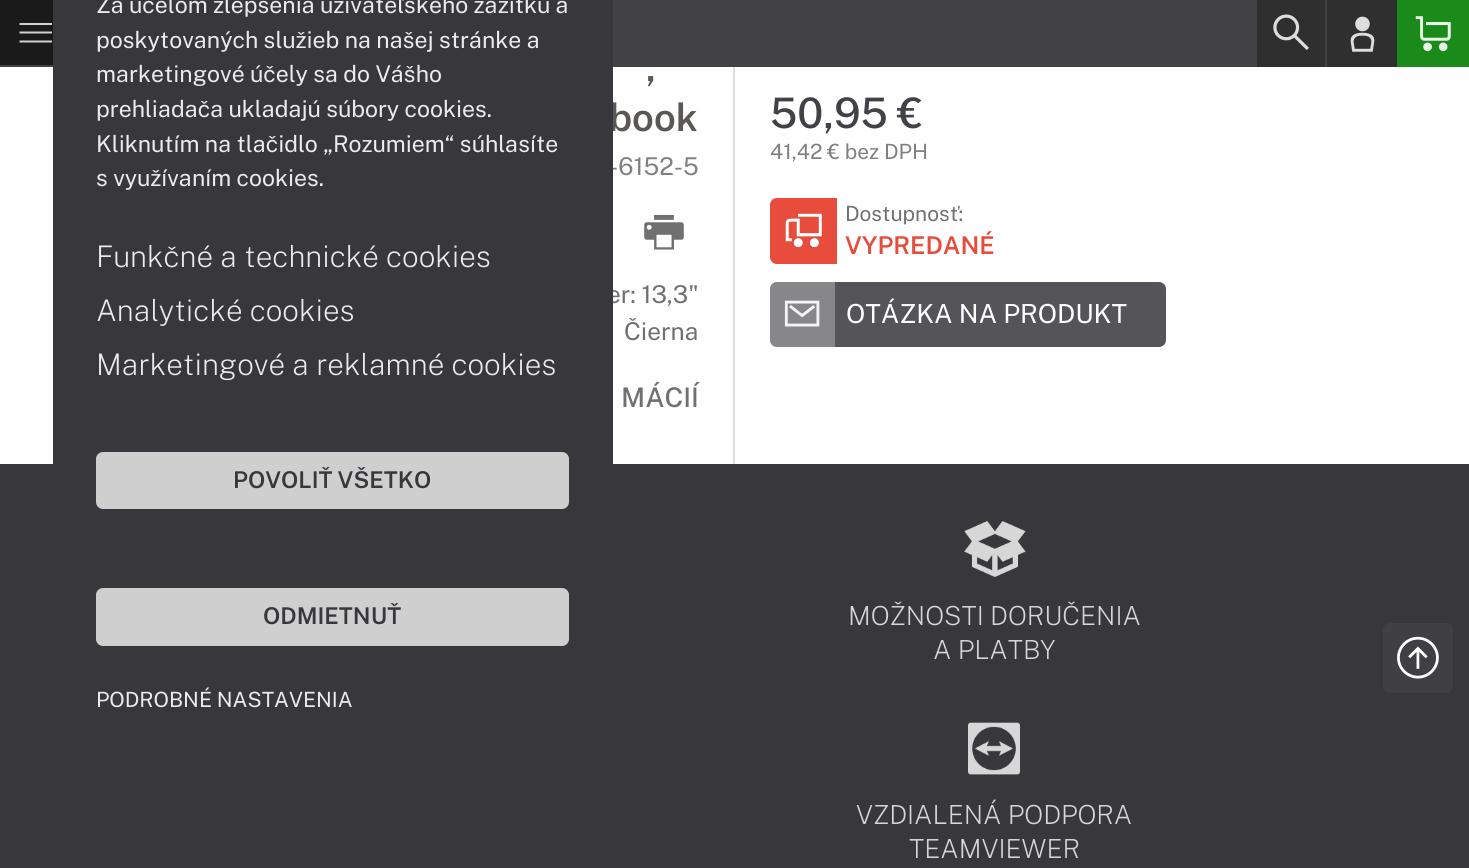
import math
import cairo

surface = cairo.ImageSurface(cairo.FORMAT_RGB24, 1469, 868)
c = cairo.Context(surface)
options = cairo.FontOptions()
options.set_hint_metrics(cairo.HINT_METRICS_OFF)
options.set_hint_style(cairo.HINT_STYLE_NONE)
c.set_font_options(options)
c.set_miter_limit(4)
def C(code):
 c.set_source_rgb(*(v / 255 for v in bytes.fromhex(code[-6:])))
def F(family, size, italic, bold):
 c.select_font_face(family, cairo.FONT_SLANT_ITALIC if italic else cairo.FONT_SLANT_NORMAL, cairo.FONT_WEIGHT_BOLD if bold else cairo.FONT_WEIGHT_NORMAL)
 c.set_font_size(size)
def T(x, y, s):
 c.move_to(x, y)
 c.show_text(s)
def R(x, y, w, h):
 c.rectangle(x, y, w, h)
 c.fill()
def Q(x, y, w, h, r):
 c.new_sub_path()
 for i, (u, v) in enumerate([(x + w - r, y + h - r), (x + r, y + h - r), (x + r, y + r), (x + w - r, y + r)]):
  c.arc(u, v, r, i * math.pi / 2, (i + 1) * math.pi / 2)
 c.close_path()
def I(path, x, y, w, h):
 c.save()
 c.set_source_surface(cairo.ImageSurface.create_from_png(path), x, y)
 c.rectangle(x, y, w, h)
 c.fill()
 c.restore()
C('38383c')
c.paint()
C('414146')
R(0,0,1257,67)
C('1a1a1a')
R(0,0,53,65)
C('d1d1d1')
c.new_path()
c.move_to(19.5,23)
c.line_to(52,23)
c.line_to(52,25)
c.line_to(19.5,25)
c.close_path()
c.move_to(19.5,31.5)
c.line_to(52,31.5)
c.line_to(52,33.5)
c.line_to(19.5,33.5)
c.close_path()
c.move_to(19.5,40.5)
c.line_to(52,40.5)
c.line_to(52,42.5)
c.line_to(19.5,42.5)
c.close_path()
c.fill()
C('2f2f2f')
R(1257,0,68,67)
I('1.png',1273,14,36,36)
R(1327,0,70,67)
C('414146')
R(1325,0,2,67)
I('2.png',1350,16,25,36)
C('1a8a1b')
R(1397,0,72,67)
I('3.png',1415,16,36,36)
C('ffffff')
R(0,67,1469,397)
F('Public Sans SemiBold',38.5,0,0)
C('595854')
T(609,131,'book')
F('Public Sans',24.5,0,0)
C('808080')
T(609,175,'-6152-5')
C('707070')
T(607,303,'er: 13,3"')
C('38383c')
Q(53,-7,560,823,7)
c.fill()
F('Public Sans',23.1,0,0)
C('ebebec')
T(96,13,'Za účelom zlepšenia užívateľského zážitku a')
T(96,48,'poskytovaných služieb na našej stránke a')
T(96,82,'marketingové účely sa do Vášho')
T(96,117,'prehliadača ukladajú súbory cookies.')
T(96,152,'Kliknutím na tlačidlo „Rozumiem“ súhlasíte')
T(96,186,'s využívaním cookies.')
F('Public Sans ExtraLight',29.75,0,0)
T(96,267,'Funkčné a technické cookies')
T(96,321,'Analytické cookies')
T(96,375,'Marketingové a reklamné cookies')
C('cfcfd0')
Q(96,452,473,57,7)
c.fill()
F('Public Sans SemiBold',23.1,0,0)
C('38383c')
T(233,488,'POVOLIŤ VŠETKO')
C('cfcfd0')
Q(96,588,473,58,7)
c.fill()
C('38383c')
T(263,624,'ODMIETNUŤ')
F('Public Sans',21,0,0)
C('ebebec')
T(96,707,'PODROBNÉ NASTAVENIA')
C('dddddd')
R(733,67,2,397)
F('Public Sans SemiBold',38.5,0,0)
C('595854')
T(646,81,',')
I('4.png',644,214,40,36)
F('Public Sans',24.5,0,0)
C('707070')
T(624,340,'Čierna')
F('Public Sans Medium',27,0,0)
T(621,407,'MÁCIÍ')
F('Public Sans Medium',42,0,0)
C('414146')
T(770,128,'50,95 €')
F('Public Sans',21,0,0)
C('808080')
T(770,159,'41,42 € bez DPH')
C('e74c3c')
c.new_path()
c.move_to(777,198)
c.line_to(837,198)
c.line_to(837,264)
c.line_to(777,264)
c.curve_to(773,264,770,261,770,257)
c.line_to(770,205)
c.curve_to(770,201,773,198,777,198)
c.close_path()
c.fill()
I('5.png',785,213,37,35)
C('707070')
T(845,221,'Dostupnosť:')
F('Public Sans SemiBold',24.5,0,0)
C('e74c3c')
T(845,254,'VYPREDANÉ')
C('545459')
Q(770,282,396,65,7)
c.fill()
c.set_source_rgba(1,1,1,0.3)
c.new_path()
c.move_to(777,282)
c.line_to(835,282)
c.line_to(835,347)
c.line_to(777,347)
c.curve_to(773,347,770,344,770,340)
c.line_to(770,289)
c.curve_to(770,285,773,282,777,282)
c.close_path()
c.fill()
I('6.png',784,300,36,27)
F('Public Sans',26.25,0,0)
C('ffffff')
T(846,323,'OTÁZKA NA PRODUKT')
I('7.png',964,521,62,56)
F('Public Sans ExtraLight',26.25,0,0)
C('d7d7d8')
T(848,625,'MOŽNOSTI DORUČENIA')
T(933,659,'A PLATBY')
I('8.png',968,722,52,53)
T(856,824,'VZDIALENÁ PODPORA')
T(909,858,'TEAMVIEWER')
C('3f3f44')
Q(1383,623,70,70,7)
c.fill()
I('9.png',1397,636,42,43)
surface.write_to_png('o.png')
